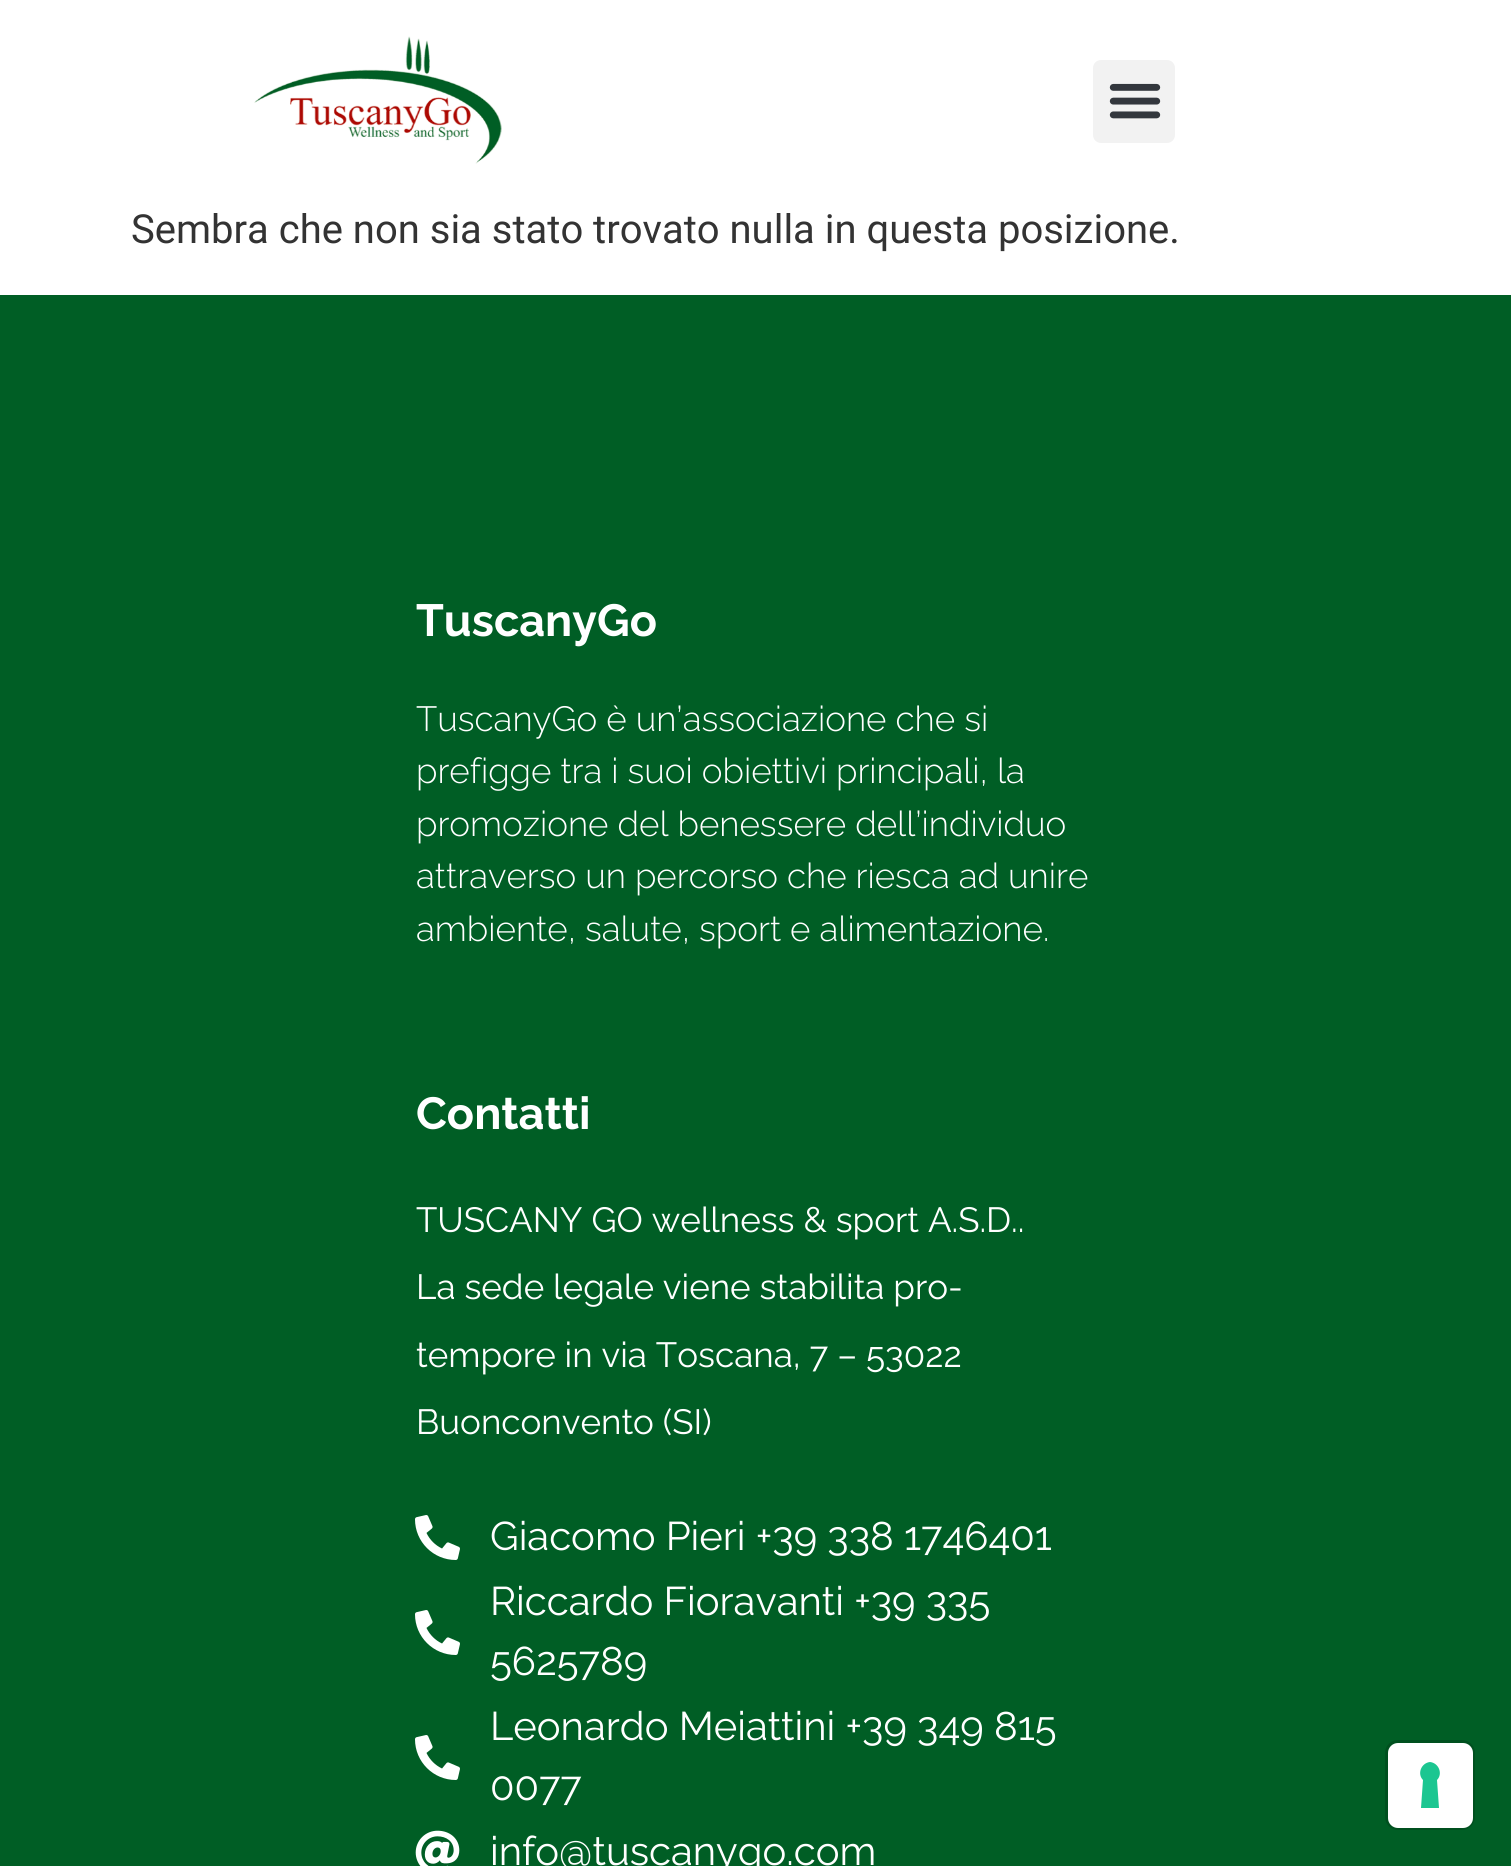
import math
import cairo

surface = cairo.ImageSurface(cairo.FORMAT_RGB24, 1511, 1866)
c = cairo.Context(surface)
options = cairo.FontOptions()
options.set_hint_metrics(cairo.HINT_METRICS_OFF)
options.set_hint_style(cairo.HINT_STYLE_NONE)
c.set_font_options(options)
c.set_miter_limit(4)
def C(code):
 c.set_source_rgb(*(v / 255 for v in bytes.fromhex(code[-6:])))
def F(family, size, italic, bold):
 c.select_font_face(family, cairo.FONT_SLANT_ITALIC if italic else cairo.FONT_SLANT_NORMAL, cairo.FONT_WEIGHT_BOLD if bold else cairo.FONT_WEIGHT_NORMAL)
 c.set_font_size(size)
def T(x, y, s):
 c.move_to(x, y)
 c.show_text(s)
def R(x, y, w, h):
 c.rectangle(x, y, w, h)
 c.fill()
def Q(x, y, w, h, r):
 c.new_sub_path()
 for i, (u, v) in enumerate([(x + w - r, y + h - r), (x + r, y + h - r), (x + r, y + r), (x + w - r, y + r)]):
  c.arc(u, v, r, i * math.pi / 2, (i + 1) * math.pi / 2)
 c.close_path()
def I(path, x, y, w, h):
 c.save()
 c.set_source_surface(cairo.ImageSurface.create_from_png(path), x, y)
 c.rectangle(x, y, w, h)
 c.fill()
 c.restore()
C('ffffff')
c.paint()
I('1.png',254,36,248,128)
C('f2f2f2')
Q(1093,60,82,83,8)
c.fill()
I('2.png',1109,83,52,36)
F('Roboto',40,0,0)
C('333333')
T(131,243,'Sembra che non sia stato trovato nulla in questa posizione.')
C('005e25')
R(0,295,1511,1571)
F('Raleway',45,0,1)
C('ffffff')
T(416,636,'TuscanyGo')
F('Raleway Light',35,0,0)
T(416,731,'TuscanyGo è un’associazione che si')
T(416,783,'prefigge tra i suoi obiettivi principali, la')
T(416,836,'promozione del benessere dell’individuo')
T(416,888,'attraverso un percorso che riesca ad unire')
T(416,941,'ambiente, salute, sport e alimentazione.')
F('Raleway',45,0,1)
T(416,1129,'Contatti')
F('Raleway',35,0,0)
T(416,1232,'TUSCANY GO wellness & sport A.S.D..')
T(416,1299,'La sede legale viene stabilita pro-')
T(416,1367,'tempore in via Toscana, 7 – 53022')
T(416,1434,'Buonconvento (SI)')
I('3.png',415,1515,45,45)
F('Raleway',40,0,0)
T(490,1550,'Giacomo Pieri +39 338 1746401')
I('3.png',415,1610,45,45)
T(490,1615,'Riccardo Fioravanti +39 335')
T(490,1675,'5625789')
I('3.png',415,1735,45,45)
T(490,1740,'Leonardo Meiattini +39 349 815')
T(490,1800,'0077')
I('4.png',415,1830,45,36)
T(490,1865,'info@tuscanygo.com')
Q(1386.5,1741.5,87,87,11.5)
C('00501f')
c.set_line_width(3)
c.stroke()
C('ffffff')
Q(1388,1743,85,85,10)
c.fill()
C('1cc691')
c.set_fill_rule(cairo.FILL_RULE_EVEN_ODD)
c.new_path()
c.move_to(1430,1762)
c.curve_to(1439,1763,1443,1774,1437,1780)
c.line_to(1439,1808)
c.line_to(1421,1808)
c.line_to(1423,1780)
c.curve_to(1417,1774,1421,1763,1430,1762)
c.close_path()
c.fill()
surface.write_to_png('o.png')
